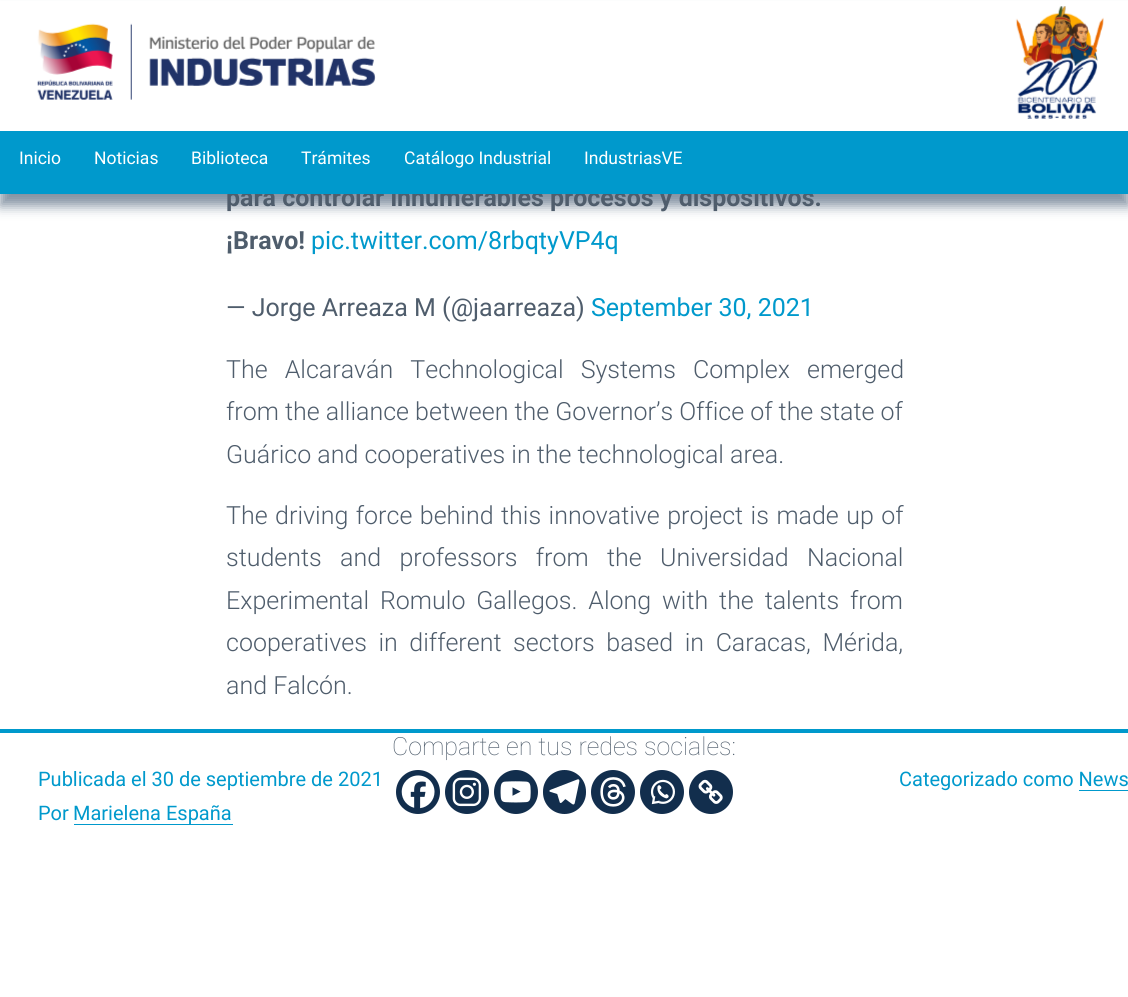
import math
import cairo

surface = cairo.ImageSurface(cairo.FORMAT_RGB24, 1128, 997)
c = cairo.Context(surface)
options = cairo.FontOptions()
options.set_hint_metrics(cairo.HINT_METRICS_OFF)
options.set_hint_style(cairo.HINT_STYLE_NONE)
c.set_font_options(options)
c.set_miter_limit(4)
def C(code):
 c.set_source_rgb(*(v / 255 for v in bytes.fromhex(code[-6:])))
def F(family, size, italic, bold):
 c.select_font_face(family, cairo.FONT_SLANT_ITALIC if italic else cairo.FONT_SLANT_NORMAL, cairo.FONT_WEIGHT_BOLD if bold else cairo.FONT_WEIGHT_NORMAL)
 c.set_font_size(size)
def T(x, y, s):
 c.move_to(x, y)
 c.show_text(s)
def L(x, y, s, letter, word):
 c.move_to(x, y)
 for ch in s:
  c.show_text(ch)
  c.rel_move_to(letter + word * (ch == ' '), 0)
def R(x, y, w, h):
 c.rectangle(x, y, w, h)
 c.fill()
def Q(x, y, w, h, r):
 c.new_sub_path()
 for i, (u, v) in enumerate([(x + w - r, y + h - r), (x + r, y + h - r), (x + r, y + r), (x + w - r, y + r)]):
  c.arc(u, v, r, i * math.pi / 2, (i + 1) * math.pi / 2)
 c.close_path()
def S(x, y, w, h, r, blur, alpha):
 c.push_group_with_content(cairo.CONTENT_ALPHA)
 c.set_operator(cairo.OPERATOR_SOURCE)
 for i in range(15, -16, -2):
  e = blur * i / 6
  if min(w, h) + 2 * e > 0:
   c.set_source_rgba(0, 0, 0, alpha * math.erfc((i - 1) / 8.5) / 2)
   Q(x - e, y - e, w + 2 * e, h + 2 * e, max(0, min(r + e + blur * .6, min(w, h) / 2 + e)))
   c.fill()
 c.mask(c.pop_group())
def I(path, x, y, w, h):
 c.save()
 c.set_source_surface(cairo.ImageSurface.create_from_png(path), x, y)
 c.rectangle(x, y, w, h)
 c.fill()
 c.restore()
C('ffffff')
c.paint()
C('122e4d')
S(0,13,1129,193,0,6,.52)
C('ffffff')
R(0,1,1128,130)
I('1.png',37,23,339,77)
I('2.png',1015,6,89,113)
F('Roboto',25,0,1)
C('4f5d6c')
T(226,206,'para controlar innumerables procesos y dispositivos.')
C('0099cc')
R(0,131,1128,63)
F('Roboto',17.5,0,0)
C('ffffff')
T(19,164,'Inicio')
T(94,164,'Noticias')
T(191,164,'Biblioteca')
T(301,164,'Trámites')
T(404,164,'Catálogo Industrial')
T(584,164,'IndustriasVE')
F('Roboto',25,0,1)
C('4f5d6c')
T(226,249,'¡Bravo!')
F('Roboto',25,0,0)
C('0099cc')
T(311,249,'pic.twitter.com/8rbqtyVP4q')
C('4f5d6c')
T(226,316,'— Jorge Arreaza M (@jaarreaza)')
C('0099cc')
T(591,316,'September 30, 2021')
F('Roboto Light',25,0,0)
C('4f5d6c')
L(226,378,'The Alcaraván Technological Systems Complex emerged',0,11)
T(226,420,'from the alliance between the Governor’s Office of the state of')
T(226,463,'Guárico and cooperatives in the technological area.')
L(226,524,'The driving force behind this innovative project is made up of',0,1.4)
L(226,566,'students and professors from the Universidad Nacional',0,12.25)
L(226,609,'Experimental Romulo Gallegos. Along with the talents from',0,4.75)
L(226,651,'cooperatives in different sectors based in Caracas, Mérida,',0,5.5)
T(226,694,'and Falcón.')
F('Roboto Thin',25,0,0)
T(392,755,'Comparte en tus redes sociales:')
C('122e4d')
c.new_path()
c.arc(418,792,22,0,2 * math.pi)
c.fill()
I('3.png',401,775,34,34)
c.arc(467,792,22,0,2 * math.pi)
c.fill()
I('4.png',452,777,30,30)
c.arc(516,792,22,0,2 * math.pi)
c.fill()
I('5.png',500,781,31,22)
Q(543,770,43,44,21.5)
c.fill()
I('6.png',549,779,31,26)
c.arc(613,792,22,0,2 * math.pi)
c.fill()
I('7.png',600,777,26,30)
c.arc(662,792,22,0,2 * math.pi)
c.fill()
I('8.png',650,779,25,26)
c.arc(711,792,22,0,2 * math.pi)
c.fill()
I('9.png',698,779,25,25)
C('0099cc')
R(0,729,1128,4)
F('Roboto',20,0,0)
T(38,786,'Publicada el 30 de septiembre de 2021')
T(38,820,'Por')
R(74,824,159,1)
T(73,820,'Marielena España')
T(899,786,'Categorizado como News')
R(1079,790,49,1)
surface.write_to_png('o.png')
